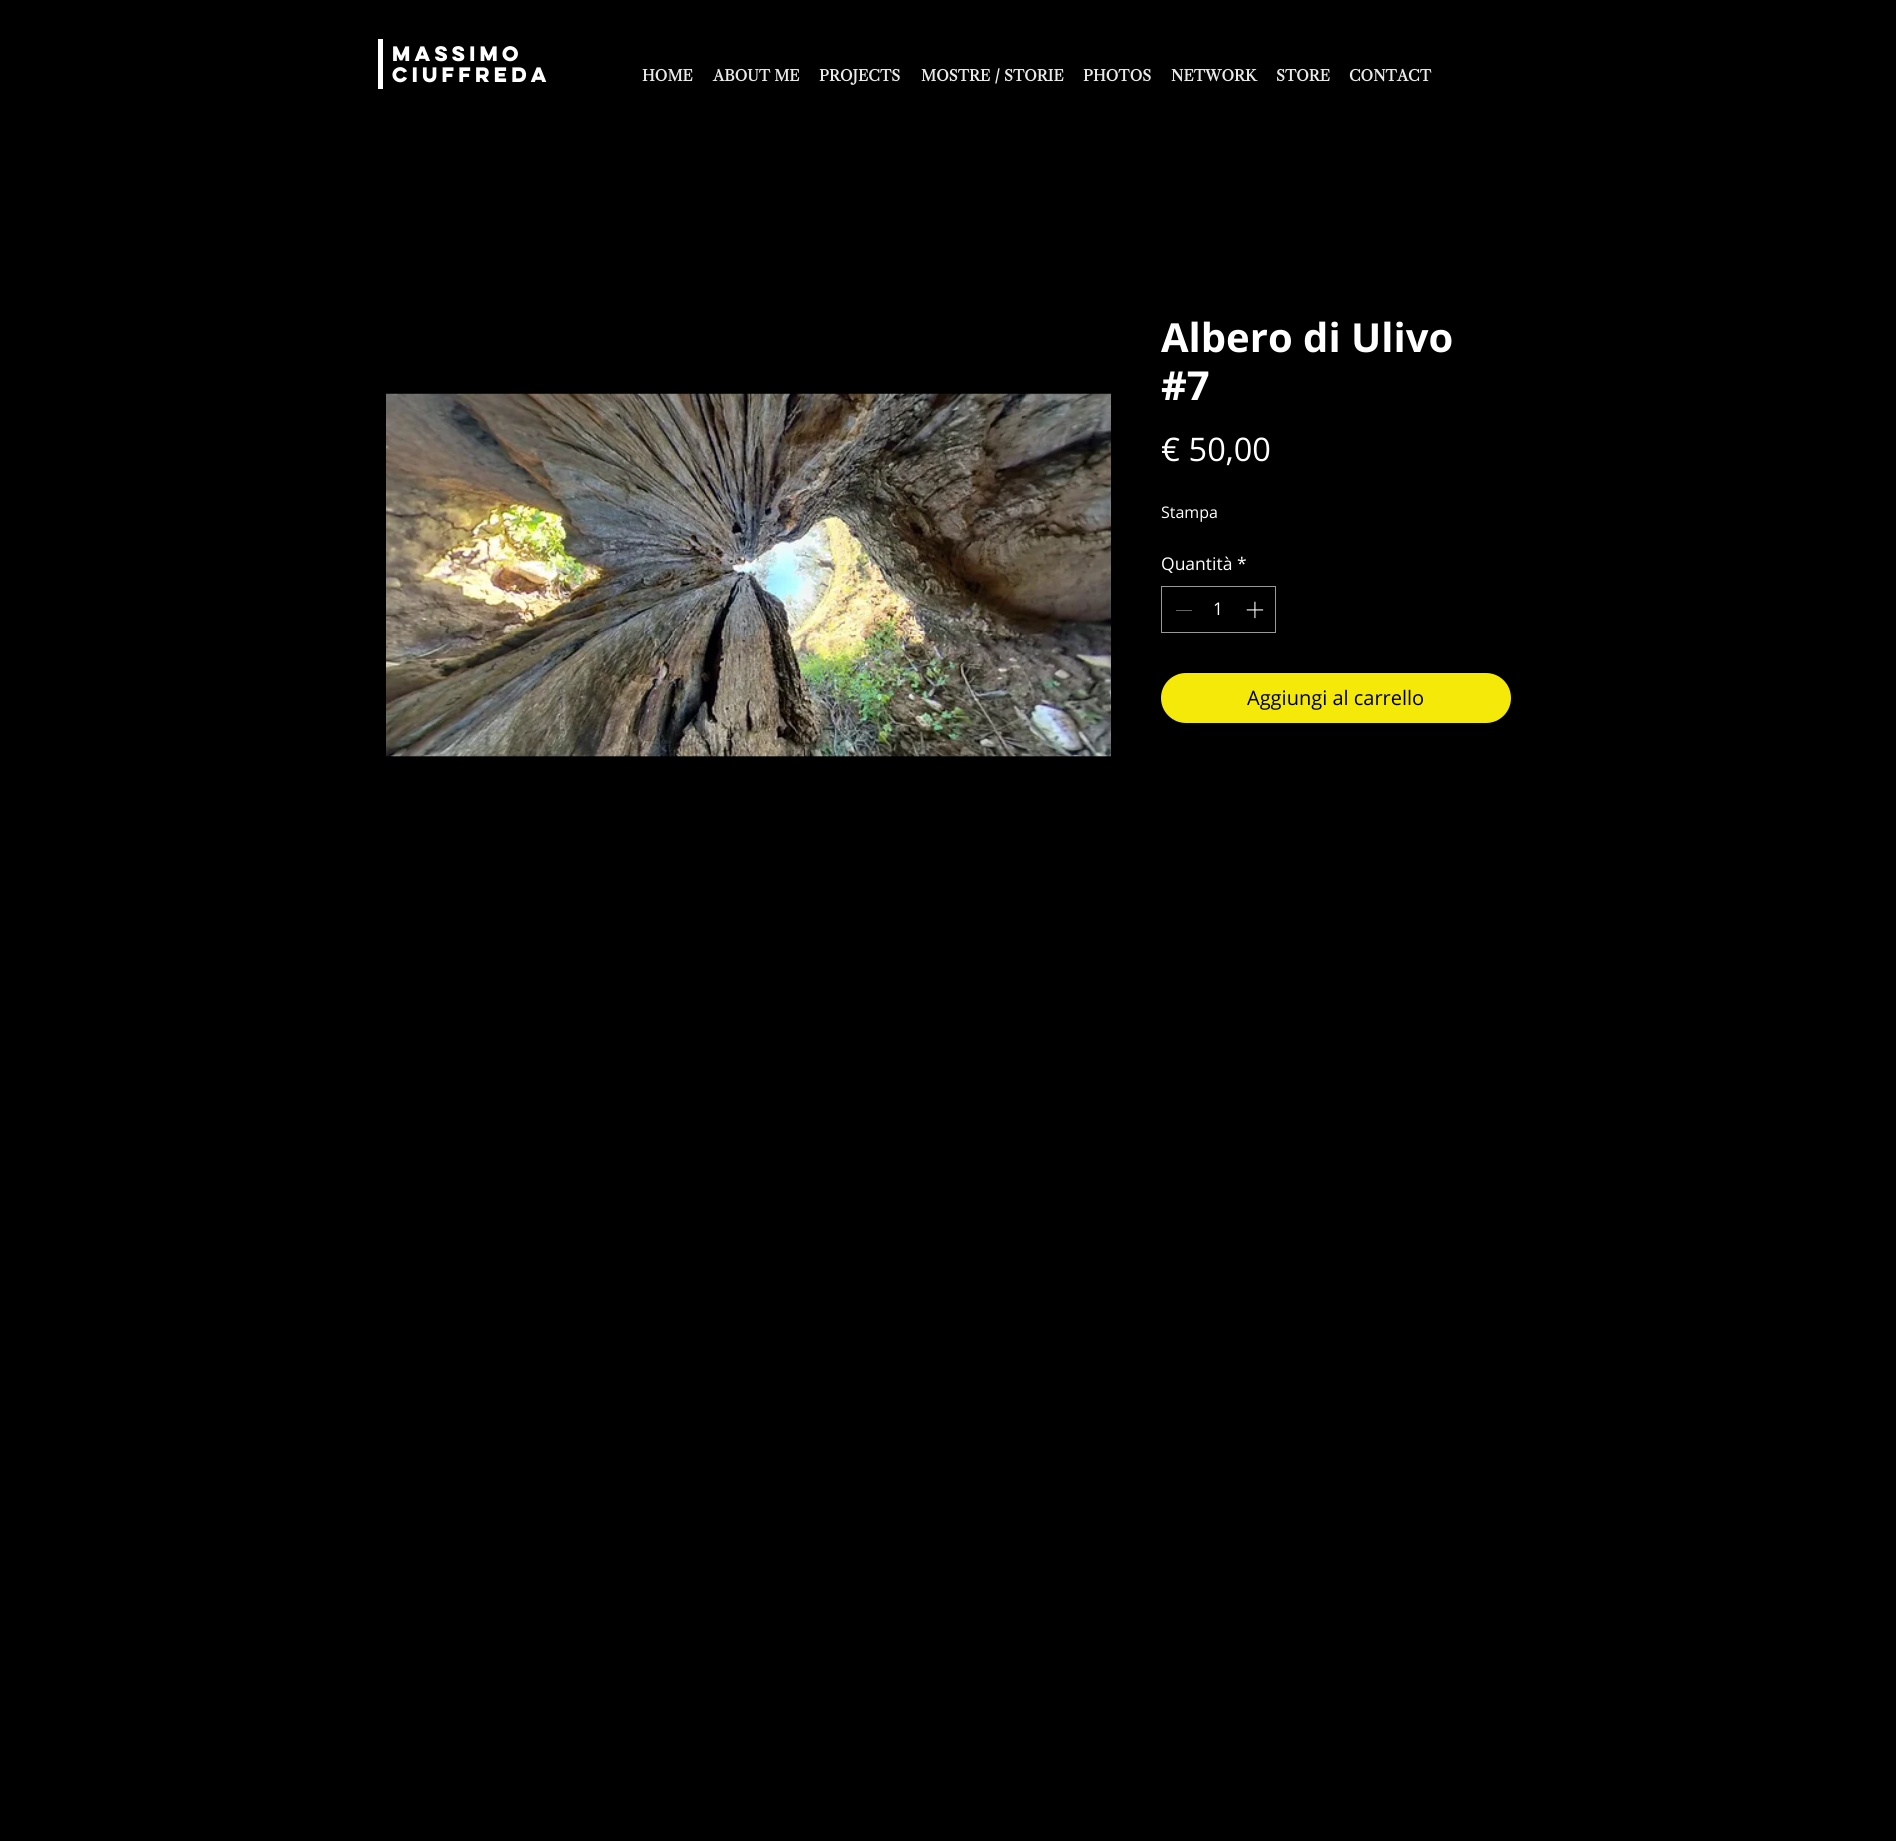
import math
import cairo

surface = cairo.ImageSurface(cairo.FORMAT_RGB24, 1896, 1841)
c = cairo.Context(surface)
options = cairo.FontOptions()
options.set_hint_metrics(cairo.HINT_METRICS_OFF)
options.set_hint_style(cairo.HINT_STYLE_NONE)
c.set_font_options(options)
c.set_miter_limit(4)
def C(code):
 c.set_source_rgb(*(v / 255 for v in bytes.fromhex(code[-6:])))
def F(family, size, italic, bold):
 c.select_font_face(family, cairo.FONT_SLANT_ITALIC if italic else cairo.FONT_SLANT_NORMAL, cairo.FONT_WEIGHT_BOLD if bold else cairo.FONT_WEIGHT_NORMAL)
 c.set_font_size(size)
def T(x, y, s):
 c.move_to(x, y)
 c.show_text(s)
def R(x, y, w, h):
 c.rectangle(x, y, w, h)
 c.fill()
def Q(x, y, w, h, r):
 c.new_sub_path()
 for i, (u, v) in enumerate([(x + w - r, y + h - r), (x + r, y + h - r), (x + r, y + r), (x + w - r, y + r)]):
  c.arc(u, v, r, i * math.pi / 2, (i + 1) * math.pi / 2)
 c.close_path()
def I(path, x, y, w, h):
 c.save()
 c.set_source_surface(cairo.ImageSurface.create_from_png(path), x, y)
 c.rectangle(x, y, w, h)
 c.fill()
 c.restore()
C('000000')
c.paint()
C('ffffff')
R(378,39,5,50)
F('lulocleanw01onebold',18.75,0,1)
T(392,61,'MASSIMO')
T(392,82,'CIUFFREDA')
F('Libre Caslon Text',15,0,1)
C('eaeaea')
T(642,81,'HOME')
T(713,81,'ABOUT ME')
T(819,81,'PROJECTS')
T(921,81,'MOSTRE / STORIE')
T(1083,81,'PHOTOS')
T(1171,81,'NETWORK')
T(1276,81,'STORE')
T(1349,81,'CONTACT')
I('1.png',386,393,725,364)
F('Open Sans',40,0,1)
C('ffffff')
T(1161,352,'Albero di Ulivo')
T(1161,400,'#7')
F('Open Sans',32.5,0,0)
T(1161,461,'€ 50,00')
F('Open Sans',16,0,0)
T(1161,518,'Stampa')
F('Open Sans',17.5,0,0)
T(1161,570,'Quantità')
T(1237,570,'*')
c.rectangle(1161.5,586.5,114,46)
C('999999')
c.set_line_width(1)
c.stroke()
C('646464')
R(1176,610,16,1)
C('ffffff')
T(1213,615,'1')
I('2.png',1246,601,18,18)
C('f4e909')
Q(1161,673,350,50,25)
c.fill()
F('Open Sans',20,0,0)
C('000000')
T(1247,705,'Aggiungi al carrello')
surface.write_to_png('o.png')
